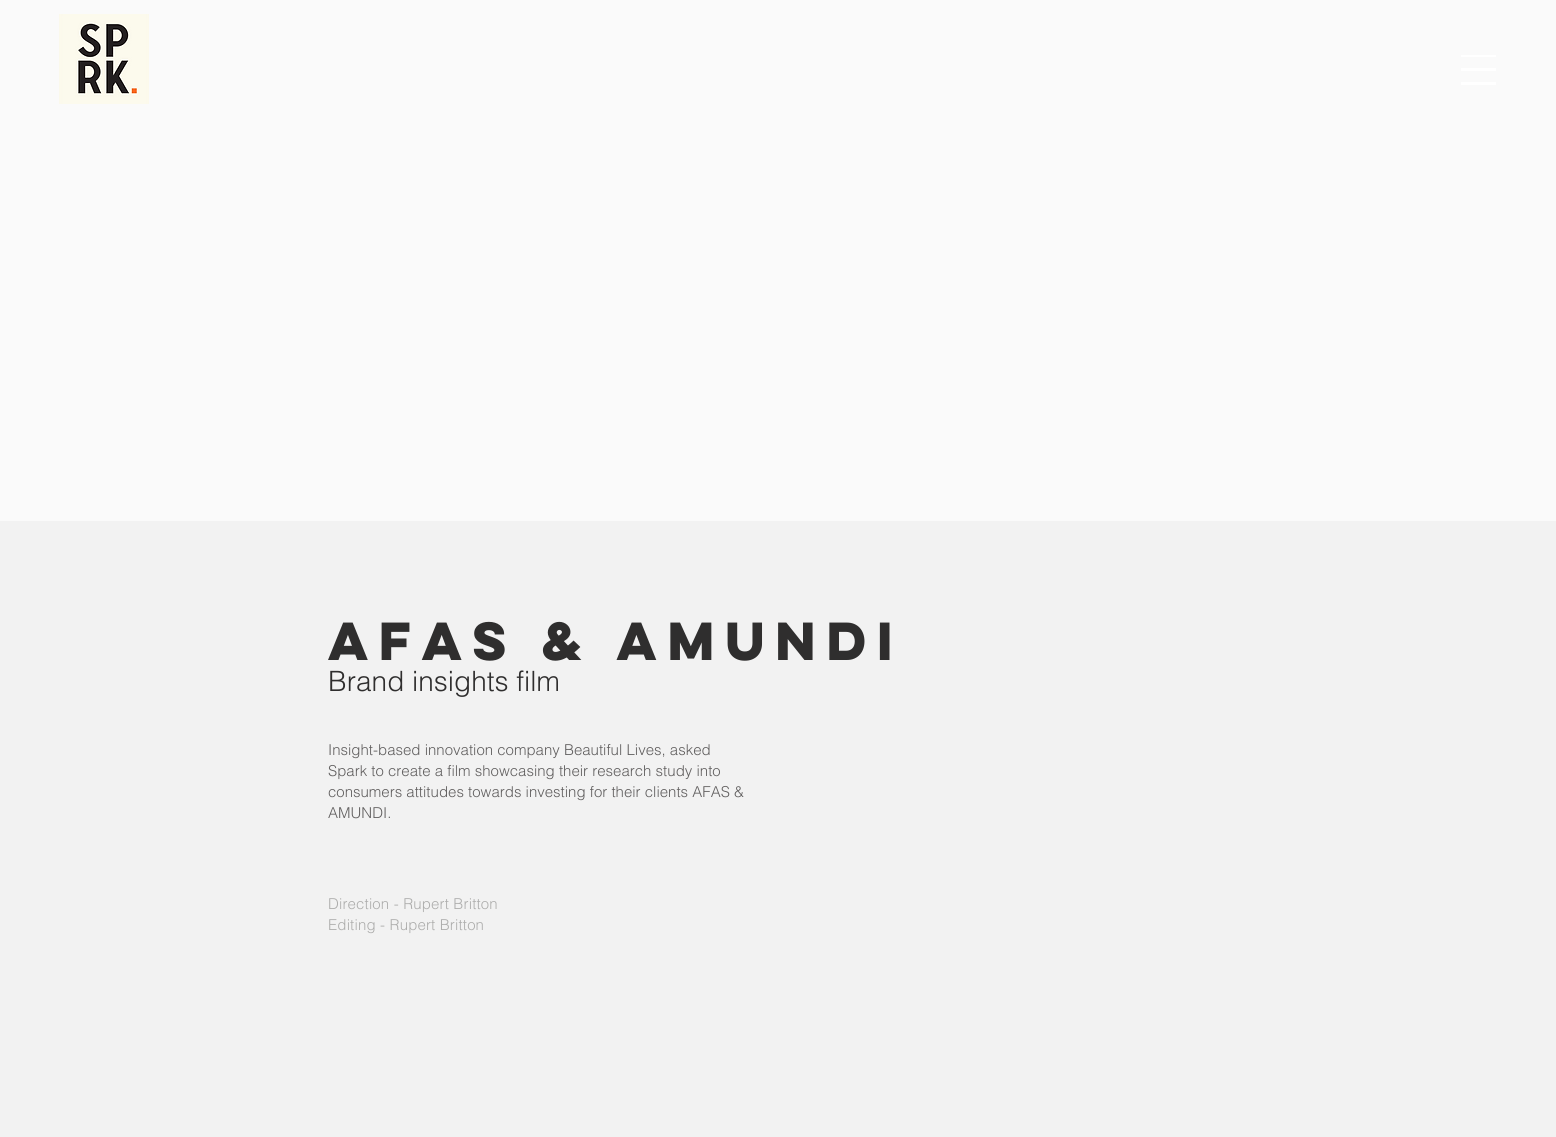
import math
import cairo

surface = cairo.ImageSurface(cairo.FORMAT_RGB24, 1556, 1137)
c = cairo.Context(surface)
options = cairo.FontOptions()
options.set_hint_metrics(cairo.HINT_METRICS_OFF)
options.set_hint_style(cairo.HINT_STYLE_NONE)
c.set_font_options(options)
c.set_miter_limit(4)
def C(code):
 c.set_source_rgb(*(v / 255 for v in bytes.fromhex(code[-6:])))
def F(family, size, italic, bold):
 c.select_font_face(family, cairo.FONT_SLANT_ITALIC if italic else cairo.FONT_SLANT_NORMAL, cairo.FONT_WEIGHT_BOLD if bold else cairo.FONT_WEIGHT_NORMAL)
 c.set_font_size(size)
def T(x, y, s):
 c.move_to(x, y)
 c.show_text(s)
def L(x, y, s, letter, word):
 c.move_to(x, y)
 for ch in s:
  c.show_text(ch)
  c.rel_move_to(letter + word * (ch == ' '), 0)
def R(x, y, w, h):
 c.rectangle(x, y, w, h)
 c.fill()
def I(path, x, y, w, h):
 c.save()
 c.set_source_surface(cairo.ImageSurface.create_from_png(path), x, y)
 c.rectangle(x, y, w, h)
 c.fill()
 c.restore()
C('f2f2f2')
c.paint()
C('fafafa')
R(0,0,1556,521)
I('1.png',59,14,90,90)
C('ffffff')
R(1461,55,35,2)
R(1461,68,35,3)
R(1461,82,35,3)
F('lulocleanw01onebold',48,0,1)
C('2f2e2e')
T(328,660,'AFAS & Amundi')
F('helvetica Light',28,0,0)
T(328,691,'Brand insights film')
F('helvetica Light',15,0,0)
C('605e5e')
T(328,755,'Insight-based innovation company Beautiful Lives, asked')
T(328,776,'Spark to create a film showcasing their research study into')
T(328,797,'consumers attitudes towards investing for their clients AFAS &')
T(328,818,'AMUNDI.')
C('adadac')
L(328,909,'Direction - Rupert Britton',.15,0)
L(328,930,'Editing - Rupert Britton',.15,0)
surface.write_to_png('o.png')
